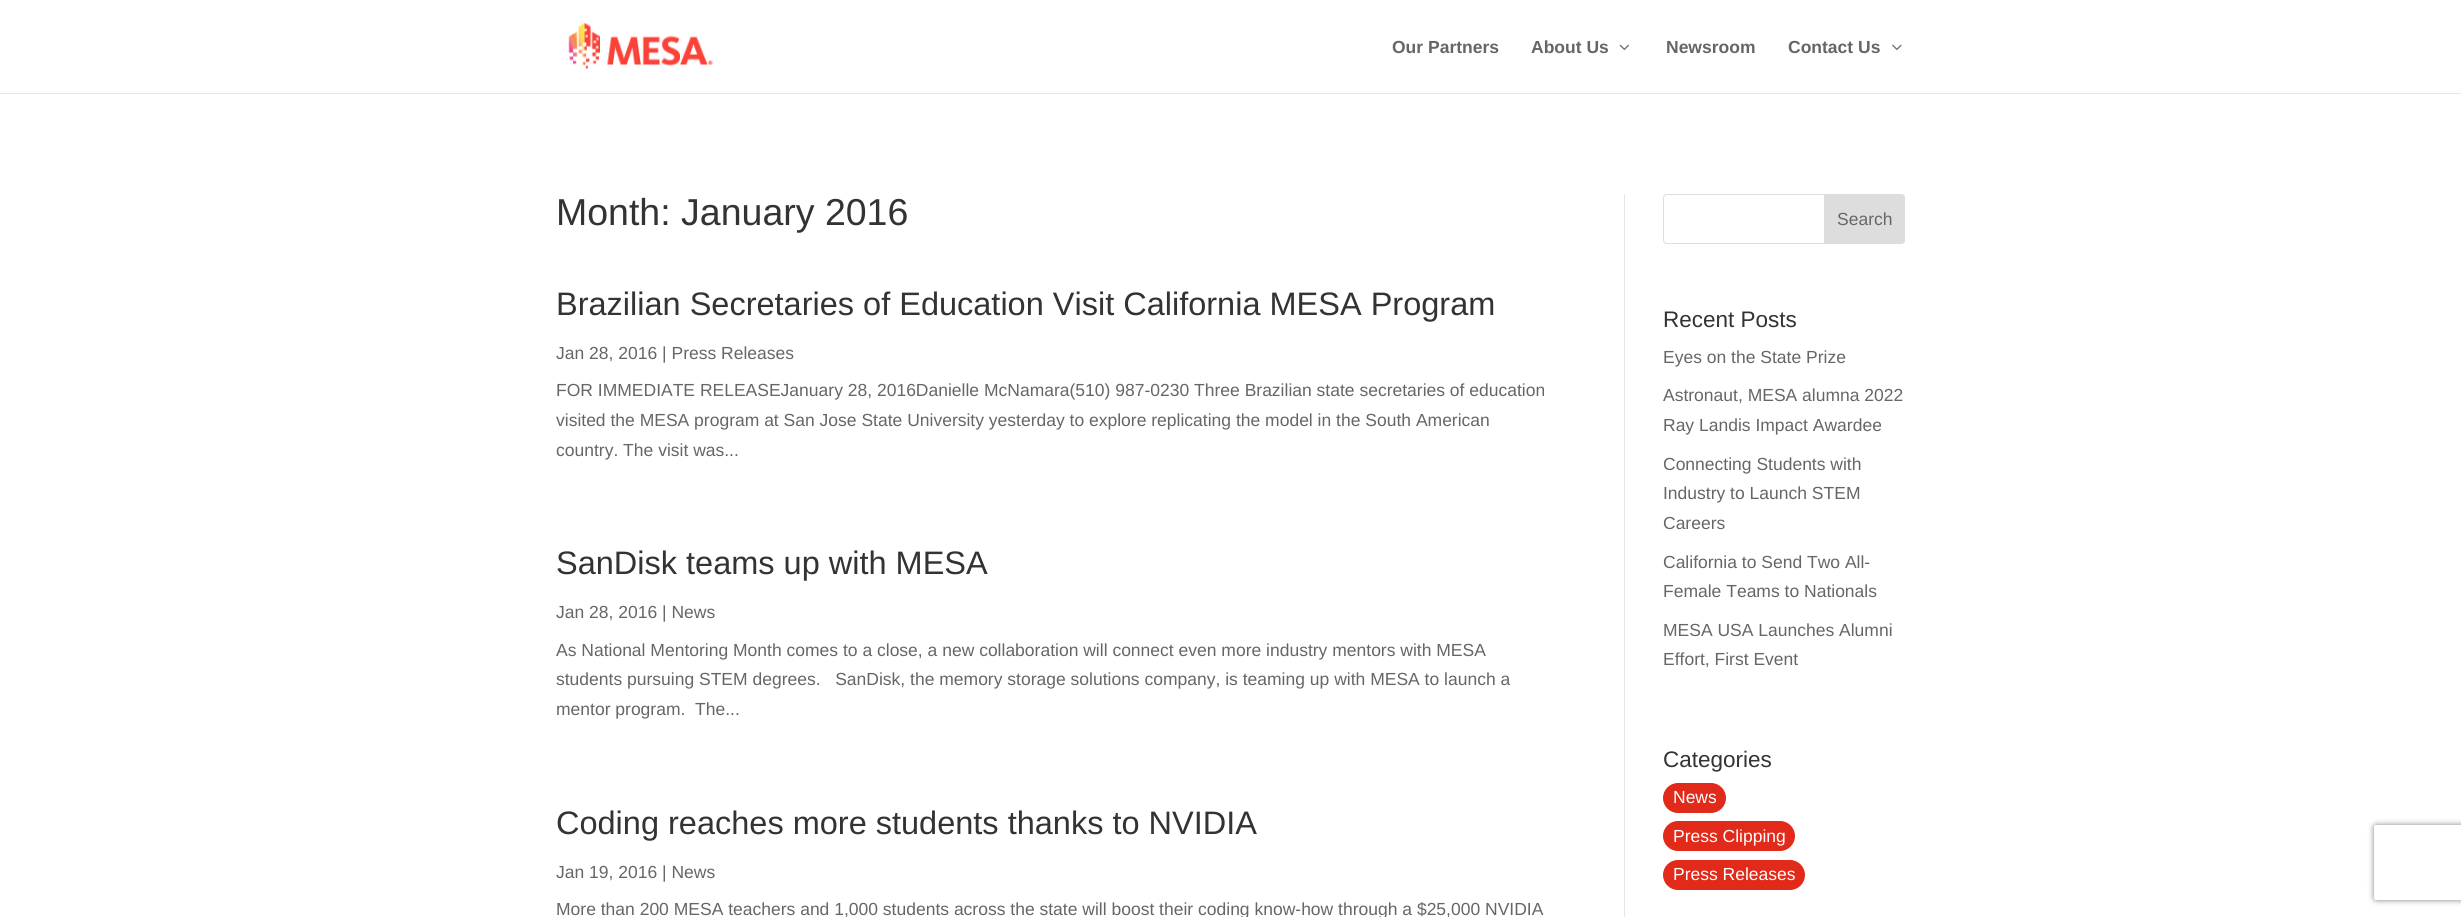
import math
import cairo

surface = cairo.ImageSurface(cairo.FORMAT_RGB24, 2461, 917)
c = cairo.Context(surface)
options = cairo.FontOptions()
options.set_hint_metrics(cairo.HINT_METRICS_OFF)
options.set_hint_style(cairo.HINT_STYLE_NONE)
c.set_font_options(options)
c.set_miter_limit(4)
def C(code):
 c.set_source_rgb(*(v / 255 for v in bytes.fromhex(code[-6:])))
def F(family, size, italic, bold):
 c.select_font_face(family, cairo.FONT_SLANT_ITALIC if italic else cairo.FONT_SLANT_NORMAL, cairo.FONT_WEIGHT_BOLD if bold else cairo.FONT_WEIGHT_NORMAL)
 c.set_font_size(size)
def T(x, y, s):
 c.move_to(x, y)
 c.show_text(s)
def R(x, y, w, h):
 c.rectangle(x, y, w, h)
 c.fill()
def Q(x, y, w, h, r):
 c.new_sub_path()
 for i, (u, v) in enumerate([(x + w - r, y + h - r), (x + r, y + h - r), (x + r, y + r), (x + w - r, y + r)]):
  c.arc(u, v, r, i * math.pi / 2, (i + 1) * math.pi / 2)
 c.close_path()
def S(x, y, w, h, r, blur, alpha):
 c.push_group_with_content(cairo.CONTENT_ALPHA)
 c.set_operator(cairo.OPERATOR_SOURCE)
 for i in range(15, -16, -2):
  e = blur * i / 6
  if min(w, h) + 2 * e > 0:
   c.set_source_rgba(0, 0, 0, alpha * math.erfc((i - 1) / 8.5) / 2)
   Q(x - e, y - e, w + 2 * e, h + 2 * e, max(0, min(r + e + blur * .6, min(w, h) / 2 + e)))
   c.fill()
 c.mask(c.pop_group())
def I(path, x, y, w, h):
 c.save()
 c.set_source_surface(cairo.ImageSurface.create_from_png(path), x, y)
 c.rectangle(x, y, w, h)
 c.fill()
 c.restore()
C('ffffff')
c.paint()
C('e6e6e6')
R(0,93,2461,1)
I('1.png',568,22,145,47)
F('Liberation Sans',17.5,0,1)
C('666666')
T(1392,53,'Our Partners')
T(1531,53,'About Us')
I('2.png',1619,44,10,6)
T(1666,53,'Newsroom')
T(1788,53,'Contact Us')
I('3.png',1892,44,10,6)
F('Liberation Sans',37.5,0,0)
C('333333')
T(556,225,'Month: January 2016')
F('Liberation Sans',32.5,0,0)
T(556,315,'Brazilian Secretaries of Education Visit California MESA Program')
F('Liberation Sans',17.5,0,0)
C('666666')
T(556,359,'Jan 28, 2016 | Press Releases')
T(556,396,'FOR IMMEDIATE RELEASEJanuary 28, 2016Danielle McNamara(510) 987-0230 Three Brazilian state secretaries of education')
T(556,426,'visited the MESA program at San Jose State University yesterday to explore replicating the model in the South American')
T(556,456,'country. The visit was...')
F('Liberation Sans',32.5,0,0)
C('333333')
T(556,574,'SanDisk teams up with MESA')
F('Liberation Sans',17.5,0,0)
C('666666')
T(556,618,'Jan 28, 2016 | News')
T(556,656,'As National Mentoring Month comes to a close, a new collaboration will connect even more industry mentors with MESA')
T(556,685,'students pursuing STEM degrees.   SanDisk, the memory storage solutions company, is teaming up with MESA to launch a')
T(556,715,'mentor program.  The...')
F('Liberation Sans',32.5,0,0)
C('333333')
T(556,834,'Coding reaches more students thanks to NVIDIA')
F('Liberation Sans',17.5,0,0)
C('666666')
T(556,878,'Jan 19, 2016 | News')
T(556,915,'More than 200 MESA teachers and 1,000 students across the state will boost their coding know-how through a $25,000 NVIDIA')
C('e6e6e6')
R(1624,194,1,723)
Q(1663.5,194.5,241,49,3.5)
C('dddddd')
c.set_line_width(1)
c.stroke()
c.new_path()
c.move_to(1824.5,194.5)
c.line_to(1901,194.5)
c.curve_to(1903,194.5,1904.5,196,1904.5,198)
c.line_to(1904.5,240)
c.curve_to(1904.5,242,1903,243.5,1901,243.5)
c.line_to(1824.5,243.5)
c.close_path()
c.fill_preserve()
c.stroke()
C('666666')
T(1837,225,'Search')
F('Liberation Sans',22.5,0,0)
C('333333')
T(1663,327,'Recent Posts')
F('Liberation Sans',17.5,0,0)
C('666666')
T(1663,363,'Eyes on the State Prize')
T(1663,401,'Astronaut, MESA alumna 2022')
T(1663,431,'Ray Landis Impact Awardee')
T(1663,470,'Connecting Students with')
T(1663,499,'Industry to Launch STEM')
T(1663,529,'Careers')
T(1663,568,'California to Send Two All-')
T(1663,597,'Female Teams to Nationals')
T(1663,636,'MESA USA Launches Alumni')
T(1663,665,'Effort, First Event')
F('Liberation Sans',22.5,0,0)
C('333333')
T(1663,767,'Categories')
C('e12a19')
Q(1663,783,63,30,15)
c.fill()
F('Liberation Sans',17.5,0,0)
C('ffffff')
T(1673,803,'News')
C('e12a19')
Q(1663,821,132,30,15)
c.fill()
C('ffffff')
T(1673,842,'Press Clipping')
C('e12a19')
Q(1663,860,142,30,15)
c.fill()
C('ffffff')
T(1673,880,'Press Releases')
c.save()
c.set_fill_rule(cairo.FILL_RULE_EVEN_ODD)
c.new_path()
c.move_to(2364,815)
c.line_to(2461,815)
c.line_to(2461,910)
c.line_to(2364,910)
c.close_path()
c.move_to(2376.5,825)
c.line_to(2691.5,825)
c.curve_to(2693,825,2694,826,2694,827.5)
c.line_to(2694,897.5)
c.curve_to(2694,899,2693,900,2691.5,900)
c.line_to(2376.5,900)
c.curve_to(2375,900,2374,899,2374,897.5)
c.line_to(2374,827.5)
c.curve_to(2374,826,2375,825,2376.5,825)
c.close_path()
c.clip()
C('808080')
S(2374,825,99,75,2.5,3,1)
c.restore()
surface.write_to_png('o.png')
